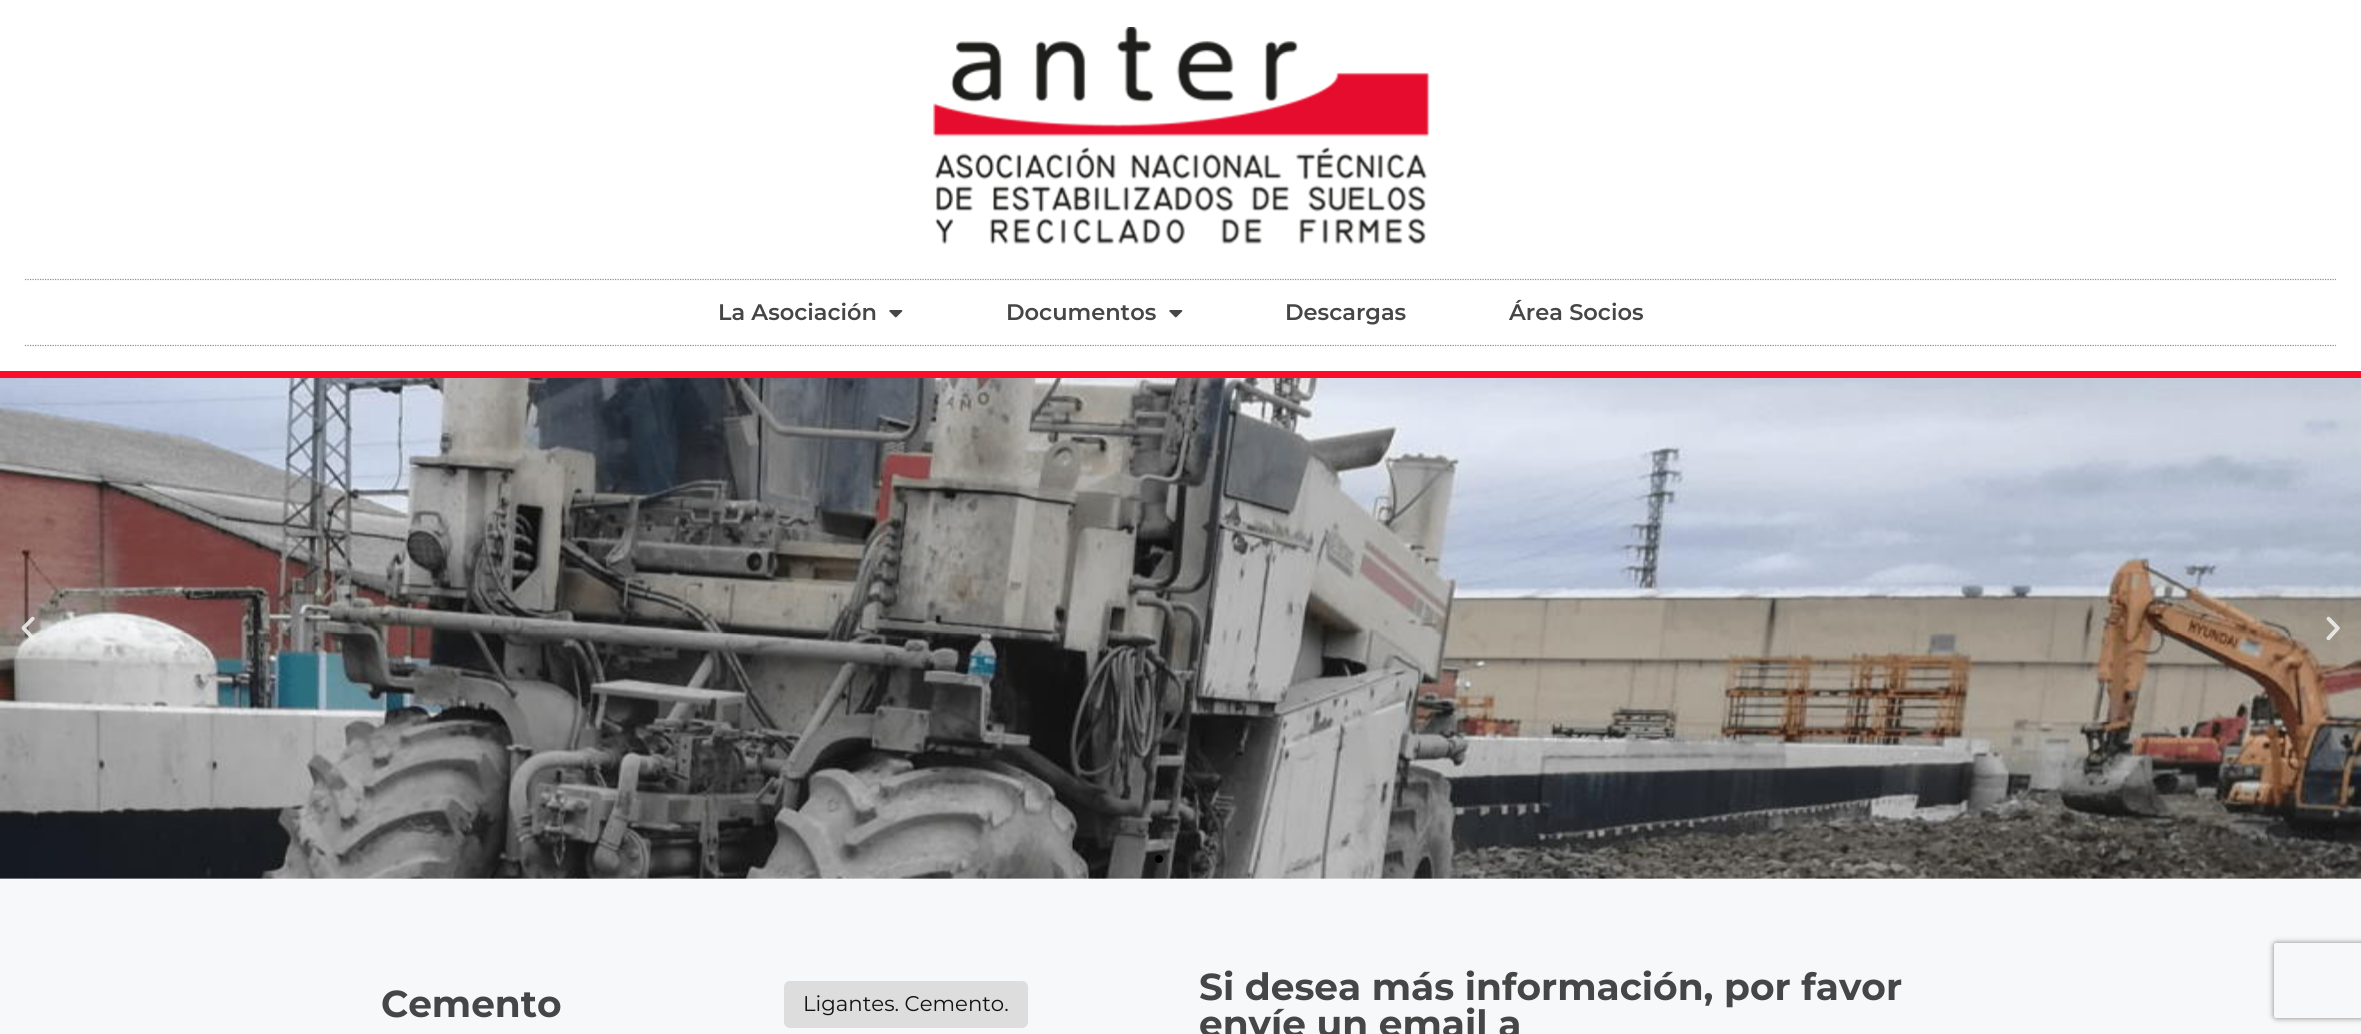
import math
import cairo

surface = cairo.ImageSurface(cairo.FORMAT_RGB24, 2361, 1034)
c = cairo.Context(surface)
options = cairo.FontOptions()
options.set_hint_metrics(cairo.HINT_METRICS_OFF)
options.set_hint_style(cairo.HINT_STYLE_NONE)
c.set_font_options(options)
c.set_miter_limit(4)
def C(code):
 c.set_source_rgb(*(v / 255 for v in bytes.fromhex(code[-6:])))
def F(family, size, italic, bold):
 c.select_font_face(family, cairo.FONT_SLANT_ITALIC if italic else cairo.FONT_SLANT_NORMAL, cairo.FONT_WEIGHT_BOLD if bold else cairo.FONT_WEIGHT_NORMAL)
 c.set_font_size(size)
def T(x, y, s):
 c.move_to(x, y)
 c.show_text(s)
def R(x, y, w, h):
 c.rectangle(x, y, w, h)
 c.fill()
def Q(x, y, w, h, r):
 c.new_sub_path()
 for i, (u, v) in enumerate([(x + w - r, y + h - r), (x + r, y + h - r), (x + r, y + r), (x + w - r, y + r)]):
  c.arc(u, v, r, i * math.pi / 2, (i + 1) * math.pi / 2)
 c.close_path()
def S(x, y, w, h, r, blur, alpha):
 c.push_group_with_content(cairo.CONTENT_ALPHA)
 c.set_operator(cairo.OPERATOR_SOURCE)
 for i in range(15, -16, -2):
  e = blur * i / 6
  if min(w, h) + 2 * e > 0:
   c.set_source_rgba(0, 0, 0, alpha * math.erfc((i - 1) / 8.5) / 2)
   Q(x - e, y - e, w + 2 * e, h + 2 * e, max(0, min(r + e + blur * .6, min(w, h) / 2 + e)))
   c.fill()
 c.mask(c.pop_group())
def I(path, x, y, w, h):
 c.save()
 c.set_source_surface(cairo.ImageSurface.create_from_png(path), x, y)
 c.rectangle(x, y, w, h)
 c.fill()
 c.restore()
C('ffffff')
c.paint()
C('fc0e2a')
R(0,371,2361,7)
I('1.png',932,27,498,218)
c.new_path()
c.move_to(25,279.5)
c.line_to(2336,279.5)
C('8e8e8e')
c.set_line_width(1.2)
c.set_dash([1.25,1.25])
c.stroke()
c.new_path()
c.move_to(25,345.5)
c.line_to(2336,345.5)
c.stroke()
F('Montserrat SemiBold',22.5,0,0)
C('464646')
T(718,320,'La Asociación')
I('2.png',889,310,14,8)
T(1006,320,'Documentos')
I('2.png',1169,310,14,8)
T(1285,320,'Descargas')
T(1509,320,'Área Socios')
C('f7f8f9')
R(0,878,2361,156)
I('3.png',0,378,2361,501)
I('4.png',21,616,14,24)
I('5.png',2326,616,14,25)
C('000000')
c.arc(1159,859,4,0,2 * math.pi)
c.fill()
c.set_source_rgba(0,0,0,0.2)
Q(1178,855,7,8,3.5)
c.fill()
c.arc(1204,859,4,0,2 * math.pi)
c.fill()
F('Montserrat',37.5,0,1)
C('464646')
T(381,1017,'Cemento')
C('dddddd')
Q(784,981,244,47,6)
c.fill()
F('Montserrat',21.25,0,0)
C('121212')
T(803,1011,'Ligantes. Cemento.')
F('Montserrat',37.5,0,1)
C('464646')
T(1199,1000,'Si desea más información, por favor')
T(1199,1037,'envíe un email a')
c.save()
c.set_fill_rule(cairo.FILL_RULE_EVEN_ODD)
c.new_path()
c.move_to(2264,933)
c.line_to(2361,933)
c.line_to(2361,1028)
c.line_to(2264,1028)
c.close_path()
c.move_to(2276.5,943)
c.line_to(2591.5,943)
c.curve_to(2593,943,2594,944,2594,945.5)
c.line_to(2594,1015.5)
c.curve_to(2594,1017,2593,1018,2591.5,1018)
c.line_to(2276.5,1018)
c.curve_to(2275,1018,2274,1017,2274,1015.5)
c.line_to(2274,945.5)
c.curve_to(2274,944,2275,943,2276.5,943)
c.close_path()
c.clip()
C('808080')
S(2274,943,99,75,2.5,3,1)
c.restore()
surface.write_to_png('o.png')
